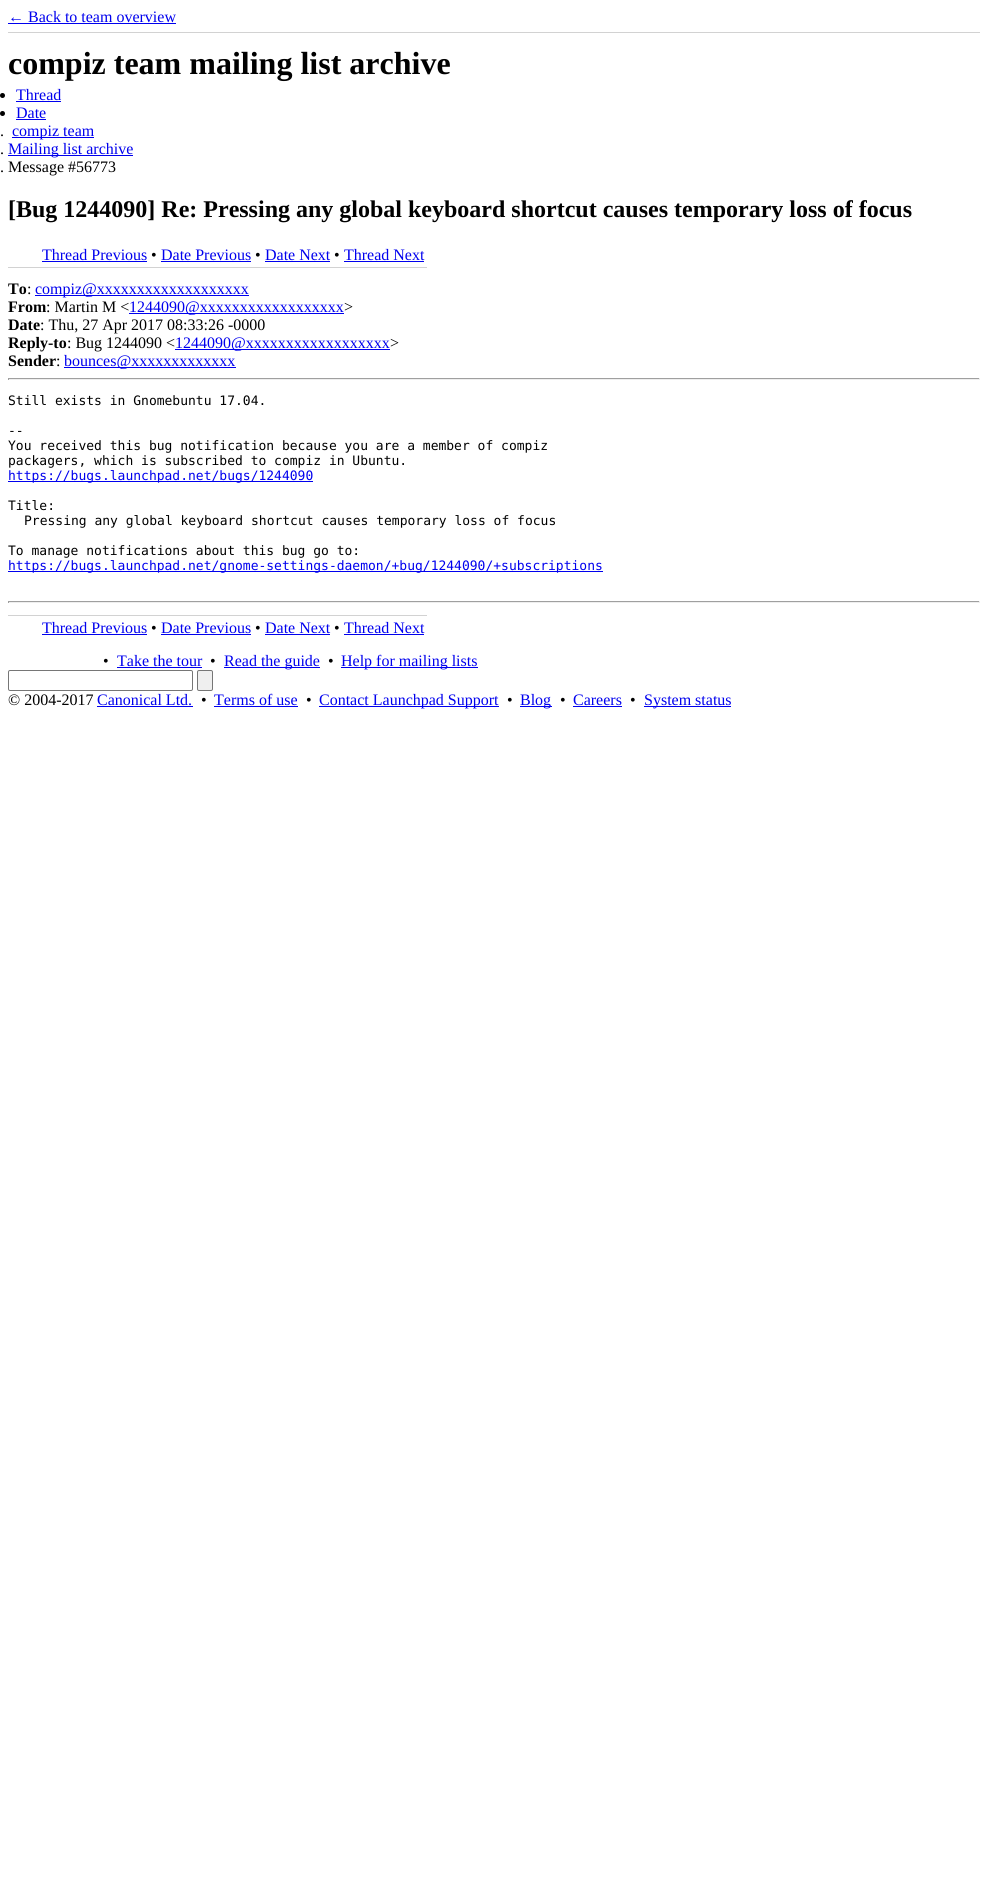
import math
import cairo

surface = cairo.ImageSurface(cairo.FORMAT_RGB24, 988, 1887)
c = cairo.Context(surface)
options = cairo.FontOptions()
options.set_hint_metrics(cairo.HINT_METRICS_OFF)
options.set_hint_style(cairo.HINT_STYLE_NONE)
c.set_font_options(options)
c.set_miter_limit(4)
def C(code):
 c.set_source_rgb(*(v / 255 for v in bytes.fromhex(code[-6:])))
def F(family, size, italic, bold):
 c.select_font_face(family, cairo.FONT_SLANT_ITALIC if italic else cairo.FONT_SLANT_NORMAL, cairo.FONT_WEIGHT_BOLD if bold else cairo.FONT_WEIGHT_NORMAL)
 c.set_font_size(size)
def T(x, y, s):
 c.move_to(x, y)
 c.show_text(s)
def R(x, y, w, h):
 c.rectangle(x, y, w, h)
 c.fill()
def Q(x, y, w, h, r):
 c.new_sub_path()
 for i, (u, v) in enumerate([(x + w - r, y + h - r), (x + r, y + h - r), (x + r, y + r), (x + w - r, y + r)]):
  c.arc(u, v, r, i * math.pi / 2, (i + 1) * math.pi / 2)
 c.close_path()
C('ffffff')
c.paint()
C('d2d2d2')
R(8,32,972,1)
F('Liberation Serif',16,0,0)
C('0000ee')
T(8,22,'← Back to team overview')
R(8,23,168,1)
F('Liberation Serif',32,0,1)
C('000000')
T(8,74,'compiz team mailing list archive')
c.new_path()
c.arc(2.5,95.5,2.5,0,2 * math.pi)
c.fill()
F('Liberation Serif',16,0,0)
C('0000ee')
T(16,100,'Thread')
R(16,101,45,1)
C('000000')
c.new_path()
c.arc(2.5,113.5,2.5,0,2 * math.pi)
c.fill()
C('0000ee')
T(16,118,'Date')
R(16,119,30,1)
C('000000')
T(0,136,'.')
C('0000ee')
R(12,137,82,1)
T(12,136,'compiz team')
C('000000')
T(0,154,'.')
C('0000ee')
R(8,155,125,1)
T(8,154,'Mailing list archive')
C('000000')
T(0,172,'. Message #56773')
F('Liberation Serif',24,0,1)
T(8,217,'[Bug 1244090] Re: Pressing any global keyboard shortcut causes temporary loss of focus')
C('d2d2d2')
R(8,267,419,1)
F('Liberation Serif',16,0,0)
C('0000ee')
T(42,260,'Thread Previous')
R(42,261,105,1)
C('000000')
T(151,260,'•')
C('0000ee')
T(161,260,'Date Previous')
R(161,261,90,1)
C('000000')
T(255,260,'•')
C('0000ee')
T(265,260,'Date Next')
R(265,261,65,1)
C('000000')
T(334,260,'•')
C('0000ee')
T(344,260,'Thread Next')
R(344,261,80,1)
F('Liberation Serif',16,0,1)
C('000000')
T(8,294,'To')
F('Liberation Serif',16,0,0)
T(27,294,':')
C('0000ee')
R(35,295,214,1)
T(35,294,'compiz@xxxxxxxxxxxxxxxxxxx')
F('Liberation Serif',16,0,1)
C('000000')
T(8,312,'From')
F('Liberation Serif',16,0,0)
T(46,312,': Martin M <')
C('0000ee')
R(129,313,215,1)
T(129,312,'1244090@xxxxxxxxxxxxxxxxxx')
C('000000')
T(344,312,'>')
F('Liberation Serif',16,0,1)
T(8,330,'Date')
F('Liberation Serif',16,0,0)
T(40,330,': Thu, 27 Apr 2017 08:33:26 -0000')
F('Liberation Serif',16,0,1)
T(8,348,'Reply-to')
F('Liberation Serif',16,0,0)
T(67,348,': Bug 1244090 <')
C('0000ee')
R(175,349,215,1)
T(175,348,'1244090@xxxxxxxxxxxxxxxxxx')
C('000000')
T(390,348,'>')
F('Liberation Serif',16,0,1)
T(8,366,'Sender')
F('Liberation Serif',16,0,0)
T(56,366,':')
C('0000ee')
R(64,367,172,1)
T(64,366,'bounces@xxxxxxxxxxxxx')
C('9f9f9f')
R(8,378,972,1)
C('eeeeee')
R(979,378,1,2)
R(8,379,972,1)
C('9f9f9f')
R(8,378,1,2)
F('DejaVu Sans Mono',13,0,0)
C('000000')
T(8,405,'Still exists in Gnomebuntu 17.04.')
T(8,435,'--')
T(8,450,'You received this bug notification because you are a member of compiz')
T(8,465,'packagers, which is subscribed to compiz in Ubuntu.')
C('0000ee')
R(8,481,305,1)
T(8,480,'https://bugs.launchpad.net/bugs/1244090')
C('000000')
T(8,510,'Title:')
T(24,525,'Pressing any global keyboard shortcut causes temporary loss of focus')
T(8,555,'To manage notifications about this bug go to:')
C('0000ee')
R(8,571,595,1)
T(8,570,'https://bugs.launchpad.net/gnome-settings-daemon/+bug/1244090/+subscriptions')
C('9f9f9f')
R(8,601,972,1)
C('eeeeee')
R(979,601,1,2)
R(8,602,972,1)
C('9f9f9f')
R(8,601,1,2)
C('d2d2d2')
R(8,615,419,1)
F('Liberation Serif',16,0,0)
C('0000ee')
T(42,633,'Thread Previous')
R(42,634,105,1)
C('000000')
T(151,633,'•')
C('0000ee')
T(161,633,'Date Previous')
R(161,634,90,1)
C('000000')
T(255,633,'•')
C('0000ee')
T(265,633,'Date Next')
R(265,634,65,1)
C('000000')
T(334,633,'•')
C('0000ee')
T(344,633,'Thread Next')
R(344,634,80,1)
C('000000')
T(103,666,'•')
C('0000ee')
T(117,666,'Take the tour')
R(117,667,85,1)
C('000000')
T(210,666,'•')
C('0000ee')
R(224,667,96,1)
T(224,666,'Read the guide')
C('000000')
T(328,666,'•')
C('0000ee')
R(341,667,137,1)
T(341,666,'Help for mailing lists')
Q(8.5,670.5,184,20,1.5)
C('767676')
c.set_line_width(1)
c.stroke()
C('efefef')
Q(197.5,670.5,15,20,1.5)
c.fill_preserve()
C('767676')
c.stroke()
C('000000')
T(8,705,'© 2004-2017')
C('0000ee')
T(97,705,'Canonical Ltd.')
R(97,706,96,1)
C('000000')
T(201,705,'•')
C('0000ee')
T(214,705,'Terms of use')
R(214,706,84,1)
C('000000')
T(306,705,'•')
C('0000ee')
R(319,706,180,1)
T(319,705,'Contact Launchpad Support')
C('000000')
T(507,705,'•')
C('0000ee')
R(520,706,32,1)
T(520,705,'Blog')
C('000000')
T(560,705,'•')
C('0000ee')
T(573,705,'Careers')
R(573,706,49,1)
C('000000')
T(630,705,'•')
C('0000ee')
R(644,706,87,1)
T(644,705,'System status')
surface.write_to_png('o.png')
